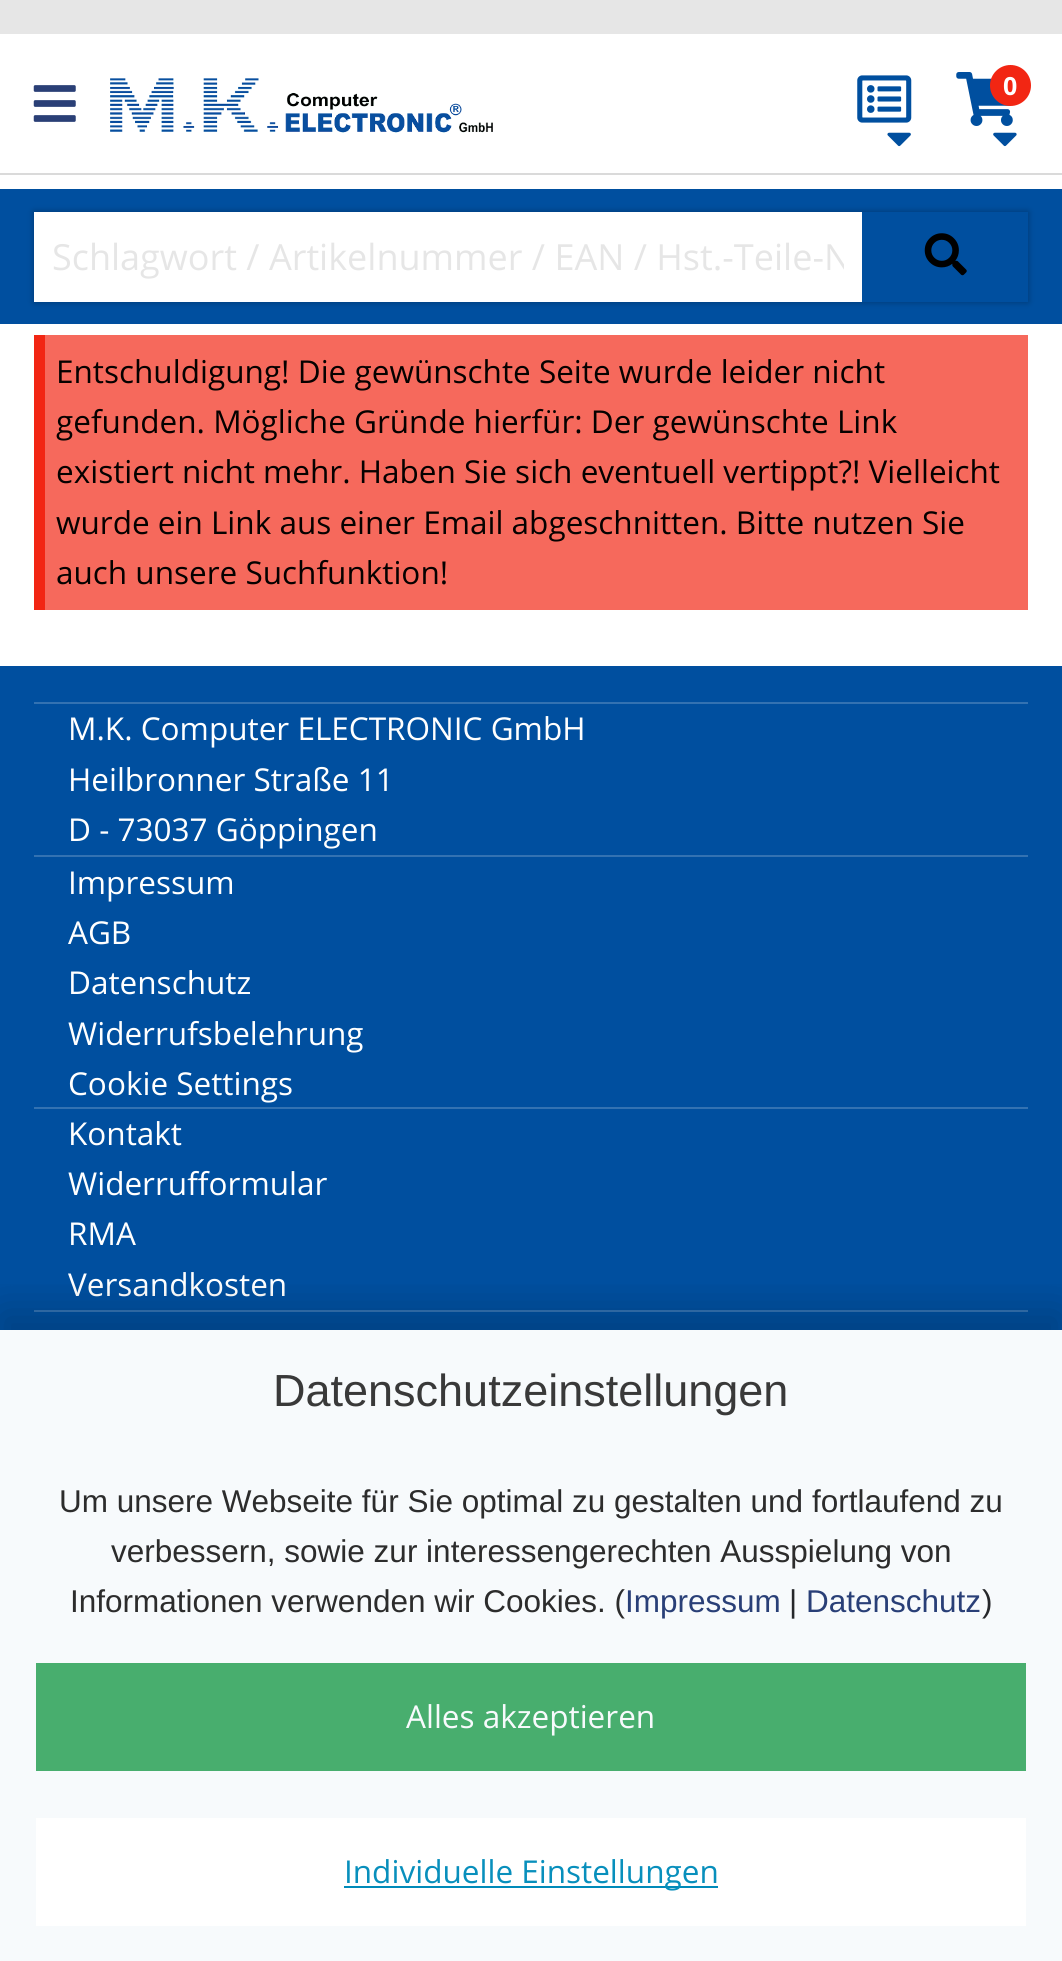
import math
import cairo

surface = cairo.ImageSurface(cairo.FORMAT_RGB24, 1062, 1961)
c = cairo.Context(surface)
options = cairo.FontOptions()
options.set_hint_metrics(cairo.HINT_METRICS_OFF)
options.set_hint_style(cairo.HINT_STYLE_NONE)
c.set_font_options(options)
c.set_miter_limit(4)
def C(code):
 c.set_source_rgb(*(v / 255 for v in bytes.fromhex(code[-6:])))
def F(family, size, italic, bold):
 c.select_font_face(family, cairo.FONT_SLANT_ITALIC if italic else cairo.FONT_SLANT_NORMAL, cairo.FONT_WEIGHT_BOLD if bold else cairo.FONT_WEIGHT_NORMAL)
 c.set_font_size(size)
def T(x, y, s):
 c.move_to(x, y)
 c.show_text(s)
def R(x, y, w, h):
 c.rectangle(x, y, w, h)
 c.fill()
def Q(x, y, w, h, r):
 c.new_sub_path()
 for i, (u, v) in enumerate([(x + w - r, y + h - r), (x + r, y + h - r), (x + r, y + r), (x + w - r, y + r)]):
  c.arc(u, v, r, i * math.pi / 2, (i + 1) * math.pi / 2)
 c.close_path()
def S(x, y, w, h, r, blur, alpha):
 c.push_group_with_content(cairo.CONTENT_ALPHA)
 c.set_operator(cairo.OPERATOR_SOURCE)
 for i in range(15, -16, -2):
  e = blur * i / 6
  if min(w, h) + 2 * e > 0:
   c.set_source_rgba(0, 0, 0, alpha * math.erfc((i - 1) / 8.5) / 2)
   Q(x - e, y - e, w + 2 * e, h + 2 * e, max(0, min(r + e + blur * .6, min(w, h) / 2 + e)))
   c.fill()
 c.mask(c.pop_group())
def I(path, x, y, w, h):
 c.save()
 c.set_source_surface(cairo.ImageSurface.create_from_png(path), x, y)
 c.rectangle(x, y, w, h)
 c.fill()
 c.restore()
C('ffffff')
c.paint()
C('e6e6e6')
R(0,0,1062,34)
I('1.png',857,75,55,48)
I('2.png',887,132,24,15)
I('3.png',956,72,57,54)
C('f22613')
c.arc(1010.5,85.5,20.5,0,2 * math.pi)
c.fill()
F('Open Sans',25,0,1)
C('ffffff')
T(1003,95,'0')
I('4.png',993,132,24,15)
C('dadada')
R(0,173,1062,2)
I('5.png',33,85,43,37)
I('6.png',110,78,383,55)
C('004f9f')
R(0,189,1062,135)
C('000000')
S(34,212,994,90,0,3.5,.3)
C('ffffff')
R(34,212,828,90)
c.save()
c.rectangle(52,232,792,49)
c.clip()
F('Open Sans',36,0,0)
C('e6e6e6')
T(52,270,'Schlagwort / Artikelnummer / EAN / Hst.-Teile-N')
c.restore()
C('004f9f')
R(862,212,166,90)
I('7.png',924,233,43,43)
C('f6695c')
R(45,335,983,275)
C('f22613')
R(34,335,11,275)
F('Open Sans',31.5,0,0)
C('060100')
T(56,383,'Entschuldigung! Die gewünschte Seite wurde leider nicht')
T(56,433,'gefunden. Mögliche Gründe hierfür: Der gewünschte Link')
T(56,483,'existiert nicht mehr. Haben Sie sich eventuell vertippt?! Vielleicht')
T(56,534,'wurde ein Link aus einer Email abgeschnitten. Bitte nutzen Sie')
T(56,584,'auch unsere Suchfunktion!')
C('004f9f')
R(0,666,1062,664)
C('f7fafc')
R(0,1330,1062,631)
C('48ae6e')
R(36,1663,990,108)
C('3372b2')
R(34,702,994,2)
C('ffffff')
T(68,740,'M.K. Computer ELECTRONIC GmbH')
T(68,791,'Heilbronner Straße 11')
T(68,841,'D - 73037 Göppingen')
C('3372b2')
R(34,855,994,2)
C('ffffff')
T(68,894,'Impressum')
T(68,944,'AGB')
T(68,994,'Datenschutz')
T(68,1045,'Widerrufsbelehrung')
T(68,1095,'Cookie Settings')
C('3372b2')
R(34,1107,994,2)
C('ffffff')
T(68,1145,'Kontakt')
T(68,1195,'Widerrufformular')
T(68,1245,'RMA')
T(68,1296,'Versandkosten')
C('3372b2')
R(34,1310,994,2)
c.save()
c.rectangle(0,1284,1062,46)
c.clip()
C('000000')
S(0,1312,1062,632,0,22.5,.19)
c.restore()
F('Liberation Sans',45,0,0)
C('393939')
T(273,1406,'Datenschutzeinstellungen')
F('Liberation Sans',31.5,0,0)
C('2c2c2c')
T(59,1512,'Um unsere Webseite für Sie optimal zu gestalten und fortlaufend zu')
T(111,1562,'verbessern, sowie zur interessengerechten Ausspielung von')
T(70,1612,'Informationen verwenden wir Cookies. (')
C('293f77')
T(625,1612,'Impressum')
C('25272a')
T(789,1612,'|')
C('293f77')
T(806,1612,'Datenschutz')
C('25272a')
T(982,1612,')')
F('Open Sans',31.5,0,0)
C('f7fafc')
T(406,1728,'Alles akzeptieren')
c.set_source_rgba(1,1,1,0.97)
R(36,1818,990,108)
C('008ab9')
R(344,1886,374,2)
C('088fbc')
T(344,1883,'Individuelle Einstellungen')
surface.write_to_png('o.png')
